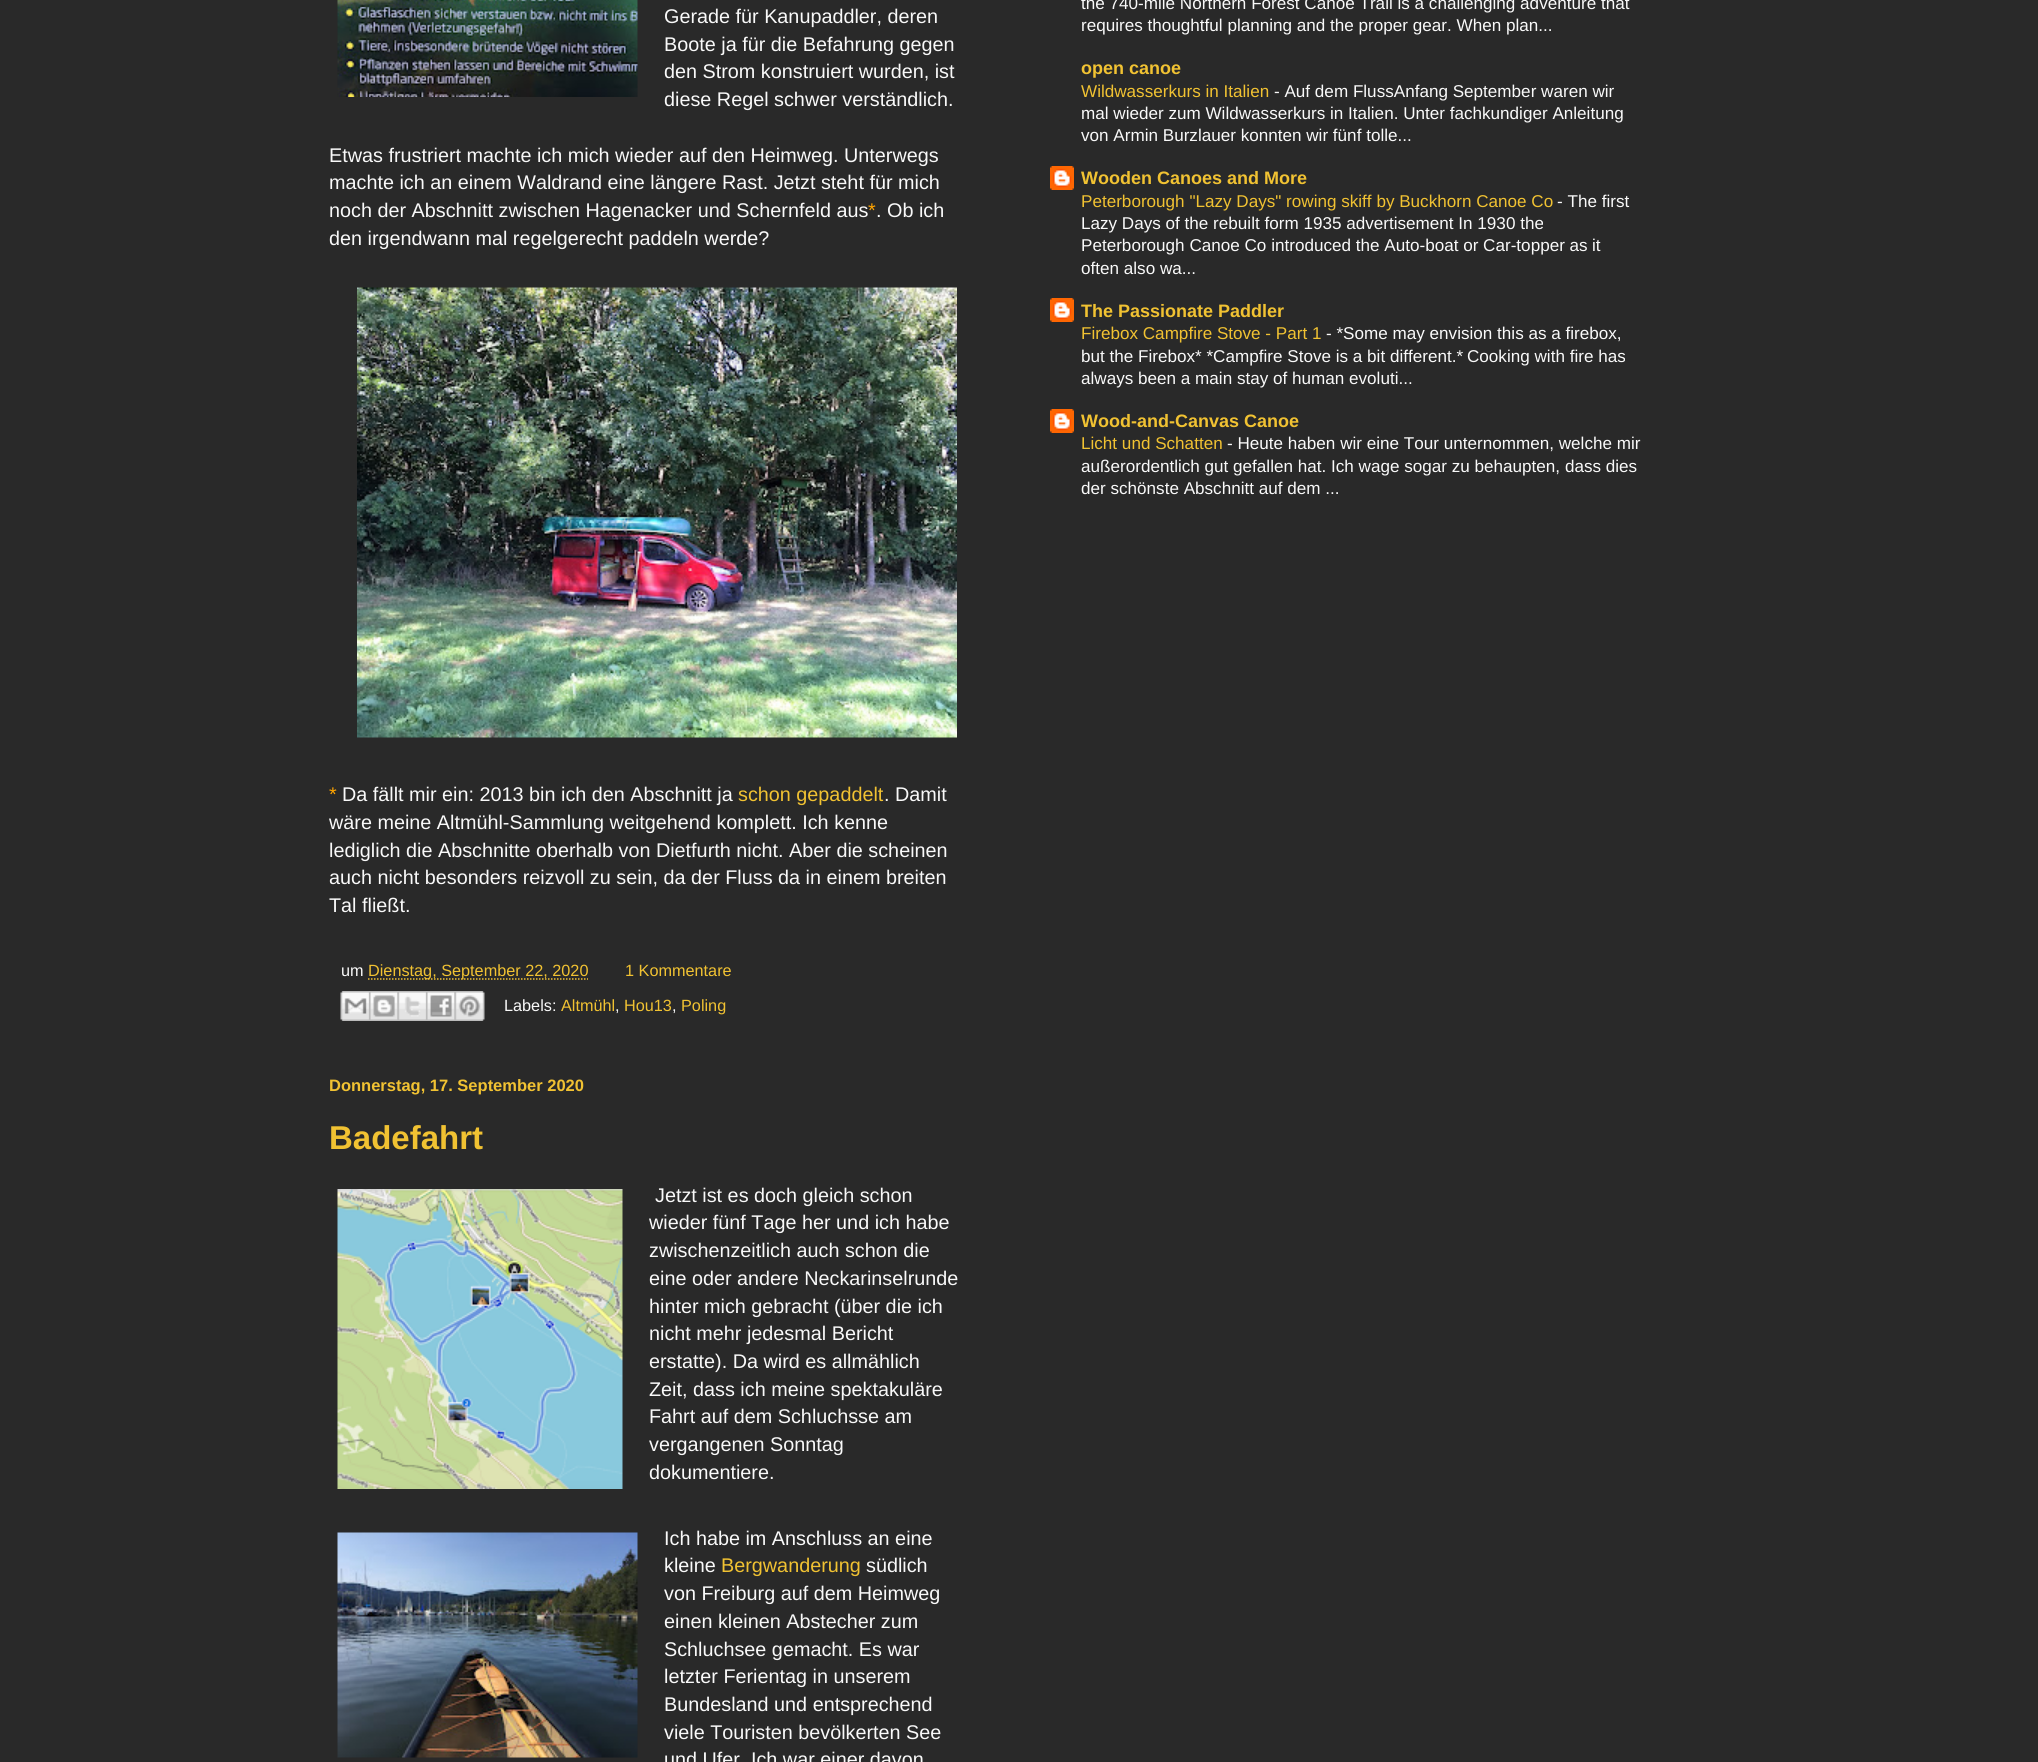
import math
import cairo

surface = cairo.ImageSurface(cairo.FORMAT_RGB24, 2038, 1762)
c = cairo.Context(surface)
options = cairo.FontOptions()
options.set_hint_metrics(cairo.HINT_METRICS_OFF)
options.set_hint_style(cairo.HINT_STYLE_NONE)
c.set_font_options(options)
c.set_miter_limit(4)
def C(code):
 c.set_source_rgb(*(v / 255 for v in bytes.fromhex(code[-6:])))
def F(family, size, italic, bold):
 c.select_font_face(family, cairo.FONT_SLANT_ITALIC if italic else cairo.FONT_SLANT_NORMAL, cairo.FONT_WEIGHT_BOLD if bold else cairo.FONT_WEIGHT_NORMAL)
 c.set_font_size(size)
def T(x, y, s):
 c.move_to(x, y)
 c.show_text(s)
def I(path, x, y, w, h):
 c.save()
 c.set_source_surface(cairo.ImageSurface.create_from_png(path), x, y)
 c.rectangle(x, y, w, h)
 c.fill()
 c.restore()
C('292929')
c.paint()
I('1.png',337,0,301,97)
F('Liberation Sans',19.8,0,0)
C('f9f9f9')
T(664,23,'Gerade für Kanupaddler, deren')
T(664,51,'Boote ja für die Befahrung gegen')
T(664,78,'den Strom konstruiert wurden, ist')
T(664,106,'diese Regel schwer verständlich.')
T(329,162,'Etwas frustriert machte ich mich wieder auf den Heimweg. Unterwegs')
T(329,189,'machte ich an einem Waldrand eine längere Rast. Jetzt steht für mich')
T(329,217,'noch der Abschnitt zwischen Hagenacker und Schernfeld aus')
C('ffa400')
T(868,217,'*')
C('f9f9f9')
T(876,217,'. Ob ich')
T(329,245,'den irgendwann mal regelgerecht paddeln werde?')
I('2.png',357,287,600,451)
C('ffa400')
T(329,801,'*')
C('f9f9f9')
T(342,801,'Da fällt mir ein: 2013 bin ich den Abschnitt ja')
C('f1c232')
T(738,801,'schon gepaddelt')
C('f9f9f9')
T(884,801,'. Damit')
T(329,829,'wäre meine Altmühl-Sammlung weitgehend komplett. Ich kenne')
T(329,857,'lediglich die Abschnitte oberhalb von Dietfurth nicht. Aber die scheinen')
T(329,884,'auch nicht besonders reizvoll zu sein, da der Fluss da in einem breiten')
T(329,912,'Tal fließt.')
F('Liberation Sans',16.25,0,0)
T(341,976,'um')
c.new_path()
c.move_to(368,979)
c.line_to(588,979)
C('f1c232')
c.set_line_width(1.5)
c.set_dash([1.5,1.5])
c.stroke()
T(368,976,'Dienstag, September 22, 2020')
T(625,976,'1 Kommentare')
I('3.png',340,991,29,30)
I('4.png',369,991,29,30)
I('5.png',397,991,29,30)
I('6.png',426,991,29,30)
I('7.png',454,991,31,30)
C('f9f9f9')
T(504,1011,'Labels:')
C('f1c232')
T(561,1011,'Altmühl')
C('f9f9f9')
T(615,1011,',')
C('f1c232')
T(624,1011,'Hou13')
C('f9f9f9')
T(672,1011,',')
C('f1c232')
T(681,1011,'Poling')
F('Liberation Sans',16.5,0,1)
T(329,1091,'Donnerstag, 17. September 2020')
F('Liberation Sans',33,0,1)
T(329,1149,'Badefahrt')
I('8.png',337,1189,286,300)
F('Liberation Sans',19.8,0,0)
C('f9f9f9')
T(655,1202,'Jetzt ist es doch gleich schon')
T(649,1229,'wieder fünf Tage her und ich habe')
T(649,1257,'zwischenzeitlich auch schon die')
T(649,1285,'eine oder andere Neckarinselrunde')
T(649,1313,'hinter mich gebracht (über die ich')
T(649,1340,'nicht mehr jedesmal Bericht')
T(649,1368,'erstatte). Da wird es allmählich')
T(649,1396,'Zeit, dass ich meine spektakuläre')
T(649,1423,'Fahrt auf dem Schluchsse am')
T(649,1451,'vergangenen Sonntag')
T(649,1479,'dokumentiere.')
I('9.png',337,1532,301,226)
T(664,1545,'Ich habe im Anschluss an eine')
T(664,1572,'kleine')
C('f1c232')
T(721,1572,'Bergwanderung')
C('f9f9f9')
T(866,1572,'südlich')
T(664,1600,'von Freiburg auf dem Heimweg')
T(664,1628,'einen kleinen Abstecher zum')
T(664,1656,'Schluchsee gemacht. Es war')
T(664,1683,'letzter Ferientag in unserem')
T(664,1711,'Bundesland und entsprechend')
T(664,1739,'viele Touristen bevölkerten See')
T(664,1766,'und Ufer. Ich war einer davon')
F('Liberation Sans',17.1,0,0)
T(1081,9,'the 740-mile Northern Forest Canoe Trail is a challenging adventure that')
T(1081,31,'requires thoughtful planning and the proper gear. When plan...')
F('Liberation Sans',18,0,1)
C('f1c232')
T(1081,74,'open canoe')
F('Liberation Sans',17.1,0,0)
T(1081,97,'Wildwasserkurs in Italien')
C('f9f9f9')
T(1274,97,'- Auf dem FlussAnfang September waren wir')
T(1081,119,'mal wieder zum Wildwasserkurs in Italien. Unter fachkundiger Anleitung')
T(1081,141,'von Armin Burzlauer konnten wir fünf tolle...')
I('10.png',1050,166,24,24)
F('Liberation Sans',18,0,1)
C('f1c232')
T(1081,184,'Wooden Canoes and More')
F('Liberation Sans',17.1,0,0)
T(1081,207,'Peterborough "Lazy Days" rowing skiff by Buckhorn Canoe Co')
C('f9f9f9')
T(1557,207,'- The first')
T(1081,229,'Lazy Days of the rebuilt form 1935 advertisement In 1930 the')
T(1081,251,'Peterborough Canoe Co introduced the Auto-boat or Car-topper as')
T(1592,251,'it')
T(1081,274,'often also wa...')
I('10.png',1050,298,24,24)
F('Liberation Sans',18,0,1)
C('f1c232')
T(1081,317,'The Passionate Paddler')
F('Liberation Sans',17.1,0,0)
T(1081,339,'Firebox Campfire Stove - Part 1')
C('f9f9f9')
T(1326,339,'- *Some may envision this as a firebox,')
T(1081,362,'but the Firebox* *Campfire Stove is a bit different.*')
T(1467,362,'Cooking with fire has')
T(1081,384,'always been a main stay of human evoluti...')
I('10.png',1050,409,24,24)
F('Liberation Sans',18,0,1)
C('f1c232')
T(1081,427,'Wood-and-Canvas Canoe')
F('Liberation Sans',17.1,0,0)
T(1081,449,'Licht und Schatten')
C('f9f9f9')
T(1227,449,'- Heute haben wir eine Tour unternommen, welche mir')
T(1081,472,'außerordentlich gut gefallen hat. Ich wage sogar zu behaupten, dass dies')
T(1081,494,'der schönste Abschnitt auf dem ...')
surface.write_to_png('o.png')
